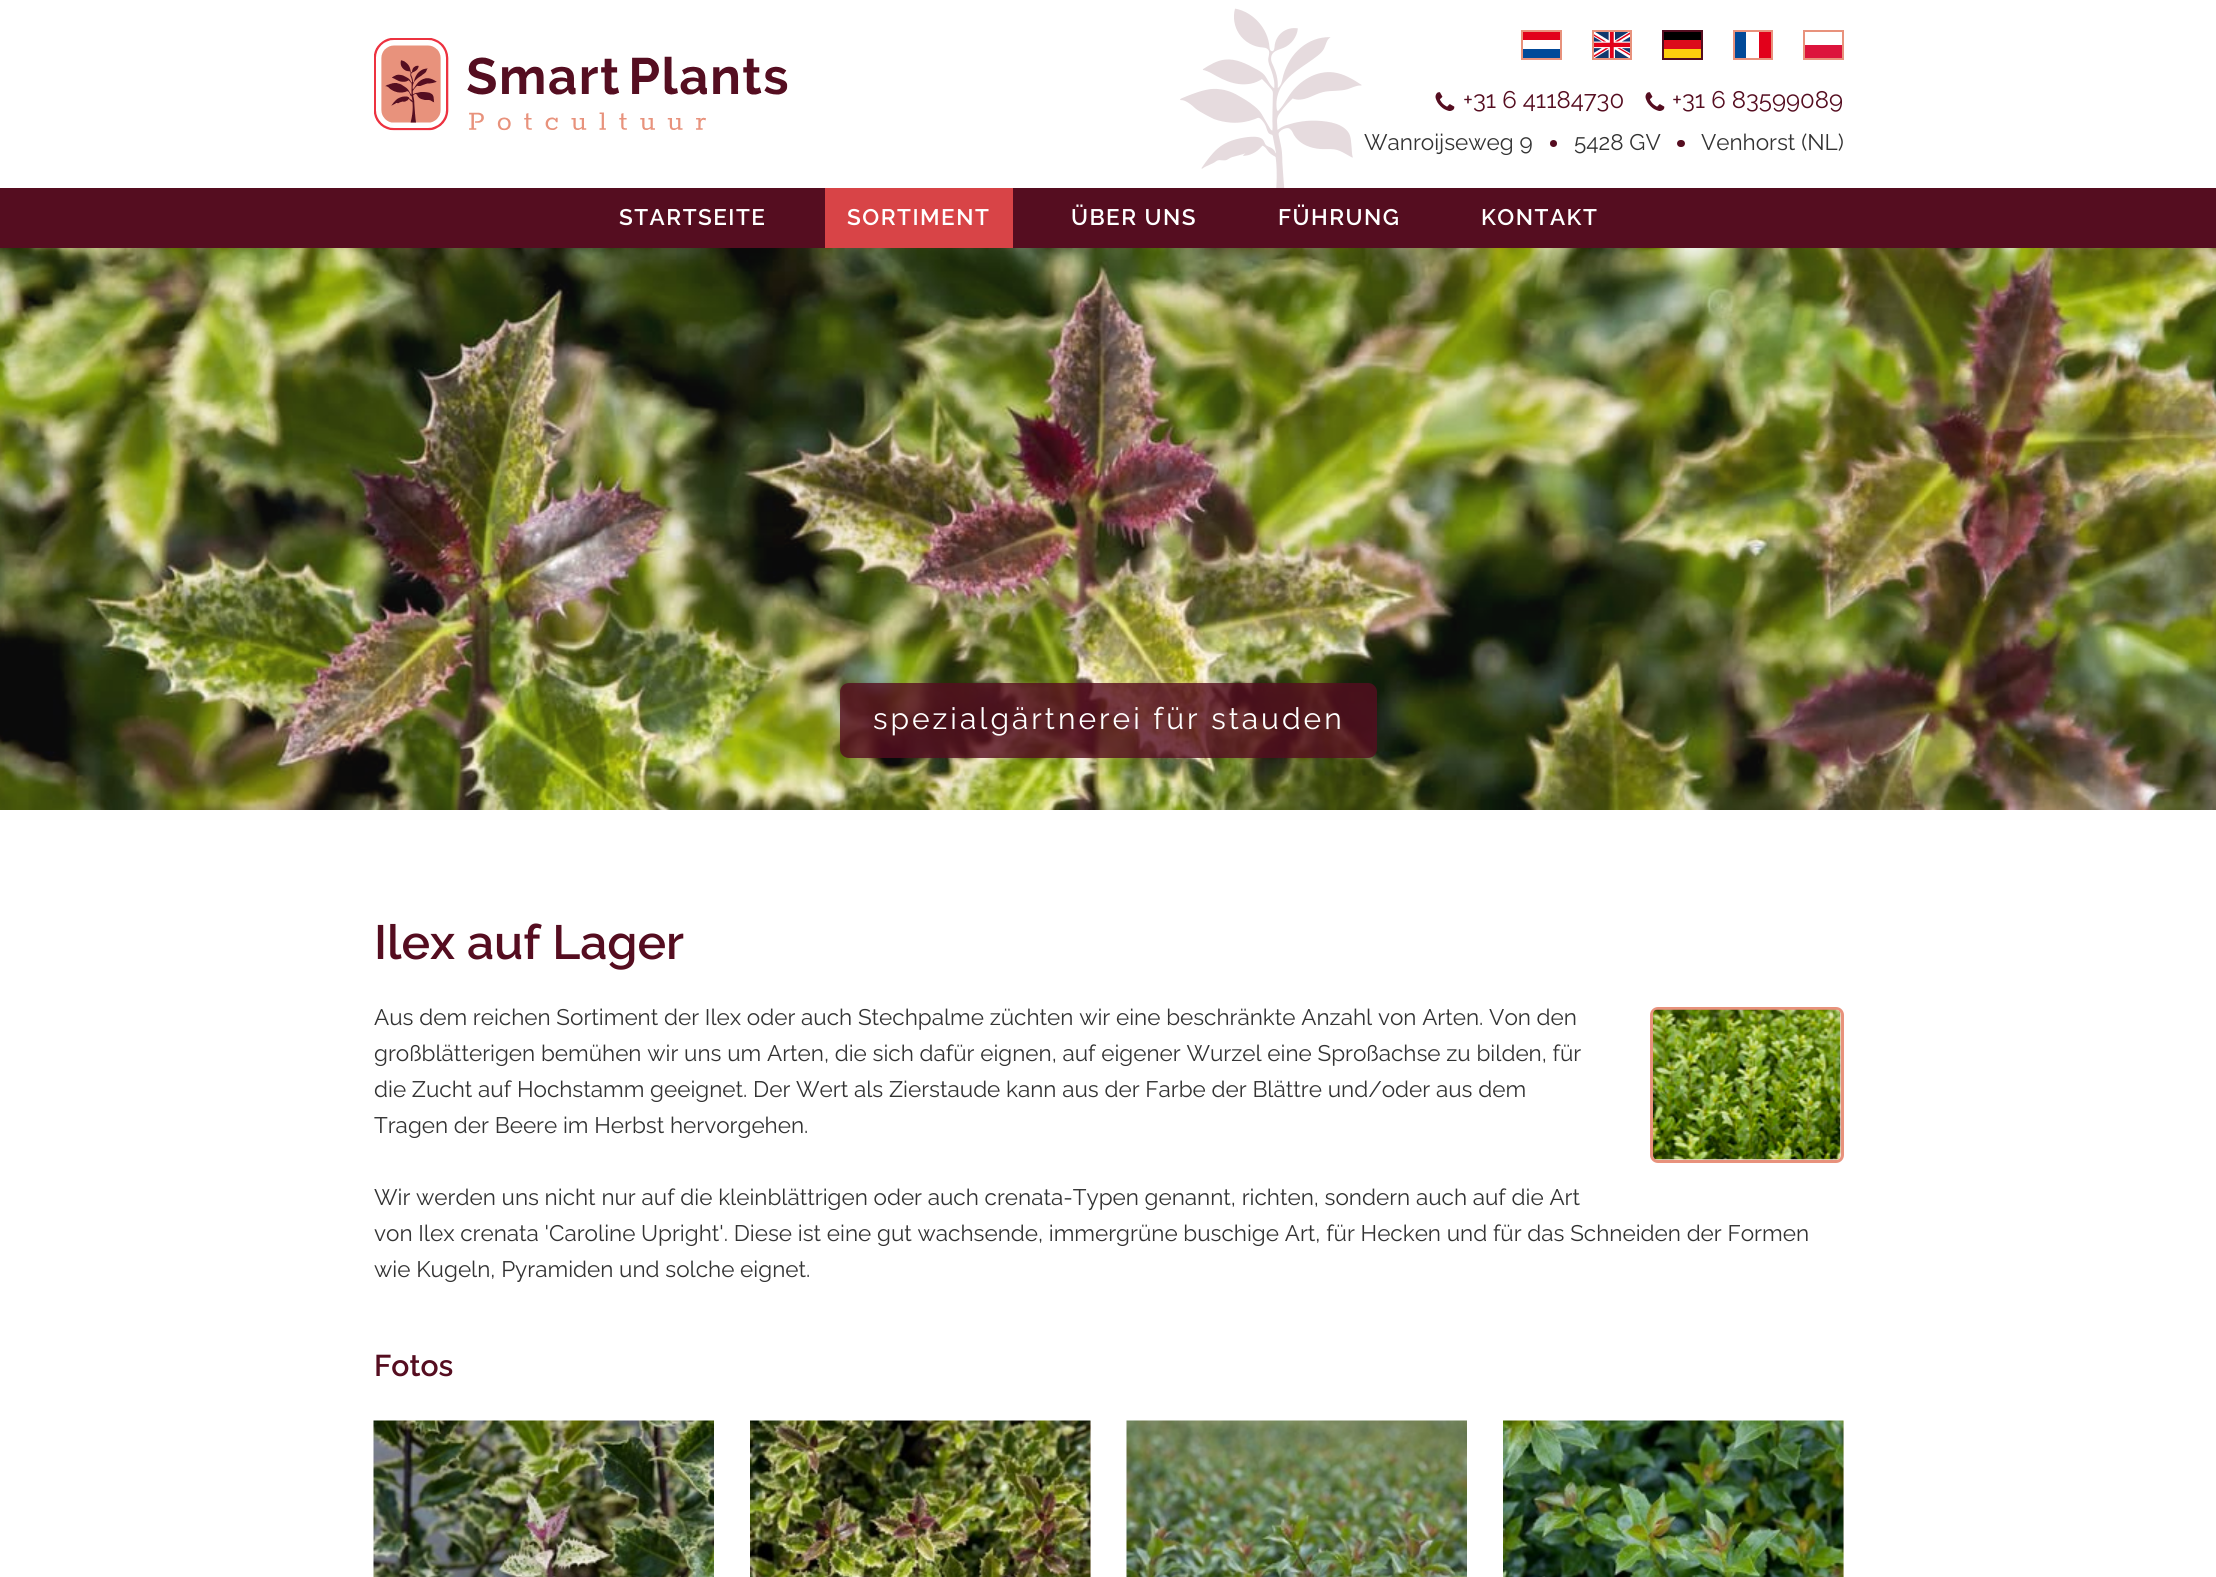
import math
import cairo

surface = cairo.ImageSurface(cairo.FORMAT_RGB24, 2216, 1577)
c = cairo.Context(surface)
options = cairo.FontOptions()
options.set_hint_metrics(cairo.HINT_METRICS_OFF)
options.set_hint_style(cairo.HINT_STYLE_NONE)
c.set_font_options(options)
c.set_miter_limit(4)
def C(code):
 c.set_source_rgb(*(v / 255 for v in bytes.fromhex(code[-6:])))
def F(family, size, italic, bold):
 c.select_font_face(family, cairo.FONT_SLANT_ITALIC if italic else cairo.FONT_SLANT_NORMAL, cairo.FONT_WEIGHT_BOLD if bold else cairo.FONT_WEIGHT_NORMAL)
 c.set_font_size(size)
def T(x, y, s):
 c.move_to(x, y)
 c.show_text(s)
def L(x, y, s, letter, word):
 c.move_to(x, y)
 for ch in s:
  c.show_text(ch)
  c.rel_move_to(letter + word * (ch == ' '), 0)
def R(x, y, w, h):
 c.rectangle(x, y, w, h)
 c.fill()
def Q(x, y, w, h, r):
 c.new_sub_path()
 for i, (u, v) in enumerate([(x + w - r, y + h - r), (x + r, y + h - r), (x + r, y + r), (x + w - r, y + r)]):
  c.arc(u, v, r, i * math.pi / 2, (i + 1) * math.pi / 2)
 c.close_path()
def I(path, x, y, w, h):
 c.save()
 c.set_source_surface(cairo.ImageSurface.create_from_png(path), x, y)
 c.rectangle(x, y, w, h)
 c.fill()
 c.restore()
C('ffffff')
c.paint()
I('1.png',1180,8,182,180)
I('2.png',374,38,414,93)
C('004a99')
R(1523,49,37,9)
C('e2001a')
R(1523,32,37,8)
c.rectangle(1522,31,39,28)
C('e8927c')
c.stroke()
I('3.png',1594,32,36,26)
c.rectangle(1593,31,38,28)
c.stroke()
C('000000')
R(1664,32,37,8)
C('dc0c1b')
R(1664,40,37,9)
C('ffcf0d')
R(1664,49,37,9)
c.rectangle(1663,31,39,28)
C('550d20')
c.stroke()
C('e2001a')
R(1759,32,12,26)
C('004a99')
R(1735,32,11,26)
c.rectangle(1734,31,38,28)
C('e8927c')
c.stroke()
C('dc143c')
R(1805,45,37,13)
c.rectangle(1804,31,39,28)
C('e8927c')
c.stroke()
I('4.png',1435,92,20,19)
F('Raleway',24,0,0)
C('550d20')
T(1463,108,'+31 6 41184730')
I('4.png',1645,92,20,19)
T(1672,108,'+31 6 83599089')
F('Raleway',22.5,0,0)
C('333333')
T(1364,150,'Wanroijseweg 9')
C('550d20')
c.new_path()
c.arc(1553.5,143.5,3.5,0,2 * math.pi)
c.fill()
C('333333')
T(1574,150,'5428 GV')
C('550d20')
Q(1677,140,8,7,3.5)
c.fill()
C('333333')
T(1701,150,'Venhorst (NL)')
C('550d20')
R(0,188,2216,60)
F('Raleway SemiBold',22.5,0,0)
C('ffffff')
L(619,225,'STARTSEITE',1.5,0)
C('d84447')
R(825,188,188,60)
C('ffffff')
L(847,225,'SORTIMENT',1.5,0)
L(1071,225,'ÜBER UNS',1.5,0)
L(1278,225,'FÜHRUNG',1.5,0)
L(1481,225,'KONTAKT',1.5,0)
I('5.png',0,248,2216,562)
c.set_source_rgba(0.333,0.051,0.125,0.8)
Q(840,683,537,75,9)
c.fill()
F('Raleway',30,0,0)
C('ffffff')
L(873,729,'spezialgärtnerei für stauden',3,0)
F('Raleway SemiBold',48,0,0)
C('550d20')
T(374,959,'Ilex auf Lager')
F('Raleway',22.5,0,0)
C('333333')
T(374,1025,'Aus dem reichen Sortiment der Ilex oder auch Stechpalme züchten wir eine beschränkte Anzahl von Arten. Von den')
T(374,1061,'großblätterigen bemühen wir uns um Arten, die sich dafür eignen, auf eigener Wurzel eine Sproßachse zu bilden, für')
T(374,1097,'die Zucht auf Hochstamm geeignet. Der Wert als Zierstaude kann aus der Farbe der Blättre und/oder aus dem')
T(374,1133,'Tragen der Beere im Herbst hervorgehen.')
C('f9e4de')
Q(1651.5,1008.5,191,153,6.5)
c.fill_preserve()
C('e8927c')
c.set_line_width(3)
c.stroke()
I('6.png',1653,1009,188,151)
C('333333')
T(374,1205,'Wir werden uns nicht nur auf die kleinblättrigen oder auch crenata-Typen genannt, richten, sondern auch auf die Art')
T(374,1241,'von Ilex crenata \'Caroline Upright\'. Diese ist eine gut wachsende, immergrüne buschige Art, für Hecken und für das Schneiden der Formen')
T(374,1277,'wie Kugeln, Pyramiden und solche eignet.')
F('Raleway SemiBold',30,0,0)
C('550d20')
T(374,1376,'Fotos')
I('7.png',373,1420,341,157)
C('f9e4de')
R(1090,1421,1,156)
I('8.png',750,1420,341,157)
I('9.png',1126,1420,341,157)
R(1843,1421,1,156)
I('10.png',1503,1420,341,157)
surface.write_to_png('o.png')
